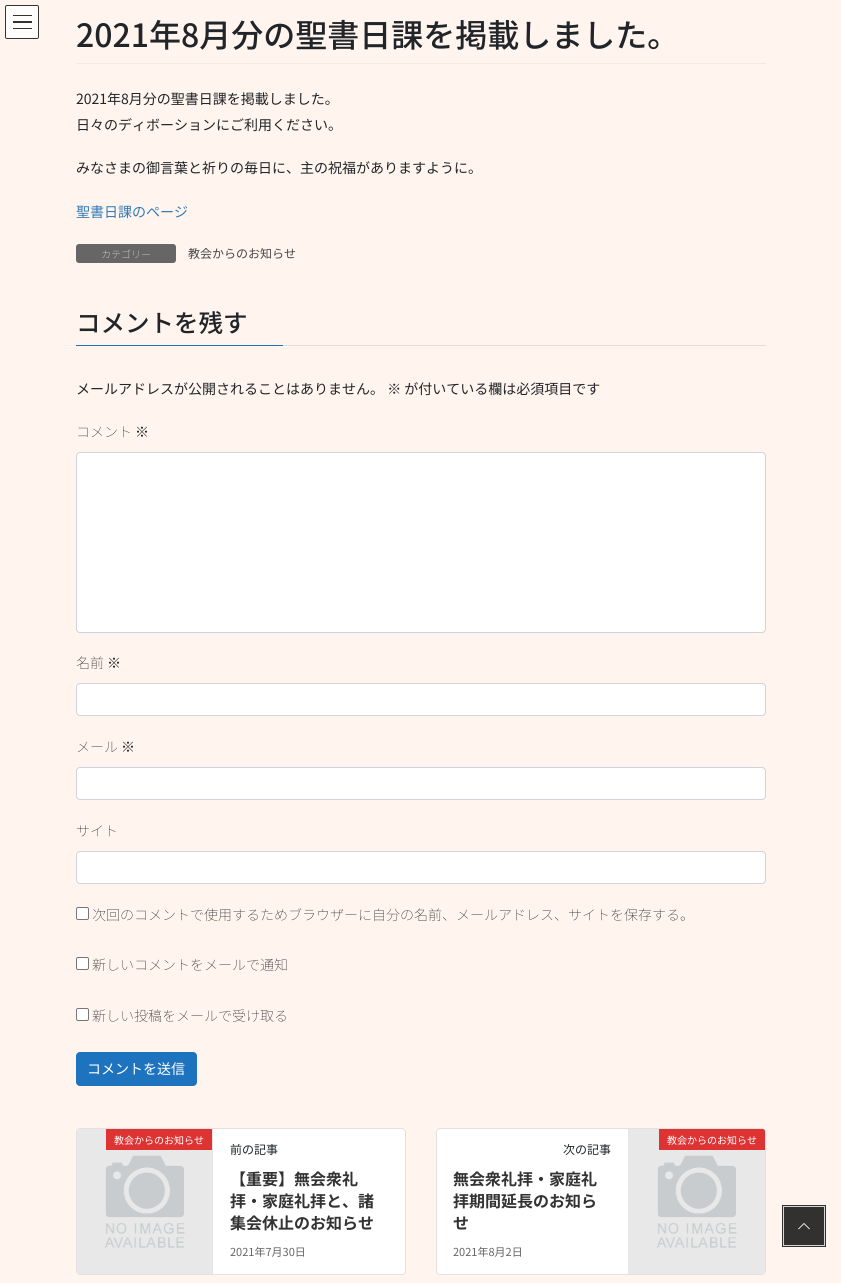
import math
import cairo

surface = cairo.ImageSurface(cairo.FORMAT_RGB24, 841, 1283)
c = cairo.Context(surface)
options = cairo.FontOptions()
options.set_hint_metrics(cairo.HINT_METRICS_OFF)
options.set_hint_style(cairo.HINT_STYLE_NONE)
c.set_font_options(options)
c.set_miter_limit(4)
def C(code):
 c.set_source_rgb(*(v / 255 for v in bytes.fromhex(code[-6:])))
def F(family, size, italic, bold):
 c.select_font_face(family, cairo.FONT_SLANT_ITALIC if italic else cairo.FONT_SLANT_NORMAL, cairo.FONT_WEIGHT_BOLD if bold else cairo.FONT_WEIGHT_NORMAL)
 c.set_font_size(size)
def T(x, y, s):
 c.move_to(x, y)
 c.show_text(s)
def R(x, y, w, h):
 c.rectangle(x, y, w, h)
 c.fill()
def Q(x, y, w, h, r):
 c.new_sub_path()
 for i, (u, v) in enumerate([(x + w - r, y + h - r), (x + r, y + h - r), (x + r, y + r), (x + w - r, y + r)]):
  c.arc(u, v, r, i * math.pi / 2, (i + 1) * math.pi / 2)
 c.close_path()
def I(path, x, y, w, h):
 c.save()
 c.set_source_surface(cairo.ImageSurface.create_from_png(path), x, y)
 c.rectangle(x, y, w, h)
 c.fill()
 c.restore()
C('fff5ee')
c.paint()
C('fffdfc')
Q(5,5,34,34,2)
c.fill()
C('333332')
R(13,15,19,1)
R(13,21,19,2)
R(13,28,19,1)
Q(5.5,5.5,33,33,1.5)
C('333333')
c.set_line_width(1)
c.stroke()
C('f2e9e2')
R(76,63,690,1)
F('Noto Sans JP Medium',32,0,0)
C('212529')
T(76,47,'2021年8月分の聖書日課を掲載しました。')
F('Noto Sans JP',14,0,0)
T(76,104,'2021年8月分の聖書日課を掲載しました。')
T(76,130,'日々のディボーションにご利用ください。')
T(76,173,'みなさまの御言葉と祈りの毎日に、主の祝福がありますように。')
C('337ab7')
T(76,217,'聖書日課のページ')
C('666666')
Q(76,244,100,19,3)
c.fill()
F('Noto Sans JP Thin',10,0,0)
C('ffffff')
T(101,258,'カテゴリー')
F('Noto Sans JP',12,0,0)
C('464646')
T(188,258,'教会からのお知らせ')
C('e6ddd6')
R(283,345,483,1)
F('Noto Sans JP Medium',24.5,0,0)
C('212529')
T(76,332,'コメントを残す')
C('1e73be')
R(76,345,207,1)
F('Noto Sans JP',14,0,0)
C('212529')
T(76,394,'メールアドレスが公開されることはありません。 ※ が付いている欄は必須項目です')
F('Noto Sans JP Thin',14,0,0)
T(76,437,'コメント ※')
C('ffffff')
Q(77,453,688,179,2.5)
c.fill()
Q(76.5,452.5,689,180,3.5)
C('ced4da')
c.stroke()
C('212529')
T(76,668,'名前 ※')
C('ffffff')
Q(77,684,688,31,2.5)
c.fill()
Q(76.5,683.5,689,32,3.5)
C('ced4da')
c.stroke()
C('212529')
T(76,752,'メール ※')
C('ffffff')
Q(77,768,688,31,2.5)
c.fill()
Q(76.5,767.5,689,32,3.5)
C('ced4da')
c.stroke()
C('212529')
T(76,836,'サイト')
C('ffffff')
Q(77,852,688,31,2.5)
c.fill()
Q(76.5,851.5,689,32,3.5)
C('ced4da')
c.stroke()
C('ffffff')
Q(76.5,907.5,12,12,1.5)
c.fill_preserve()
C('767676')
c.stroke()
C('212529')
T(92,920,'次回のコメントで使用するためブラウザーに自分の名前、メールアドレス、サイトを保存する。')
C('ffffff')
Q(76.5,957.5,12,12,1.5)
c.fill_preserve()
C('767676')
c.stroke()
C('212529')
T(92,970,'新しいコメントをメールで通知')
C('ffffff')
Q(76.5,1008.5,12,12,1.5)
c.fill_preserve()
C('767676')
c.stroke()
C('212529')
T(92,1021,'新しい投稿をメールで受け取る')
C('1e73be')
Q(76.5,1052.5,120,33,3.5)
c.fill_preserve()
c.stroke()
F('Noto Sans JP',14,0,0)
C('ffffff')
T(87,1074,'コメントを送信')
Q(76,1128,330,147,4)
c.fill()
Q(76.5,1128.5,329,146,3.5)
c.set_source_rgba(0,0,0,0.12)
c.stroke()
I('1.png',77,1129,135,145)
C('e5e5e5')
R(212,1129,1,145)
C('dd3333')
R(106,1129,106,21)
F('Noto Sans JP',10,0,0)
C('ffffff')
T(114,1144,'教会からのお知らせ')
F('Noto Sans JP',12,0,0)
C('212529')
T(230,1154,'前の記事')
F('Noto Sans JP',16,0,1)
C('333333')
T(230,1185,'【重要】無会衆礼')
T(230,1207,'拝・家庭礼拝と、諸')
T(230,1229,'集会休止のお知らせ')
F('Noto Sans JP',11,0,0)
C('666666')
T(230,1256,'2021年7月30日')
C('ffffff')
Q(436,1128,330,147,4)
c.fill()
Q(436.5,1128.5,329,146,3.5)
c.set_source_rgba(0,0,0,0.12)
c.stroke()
I('2.png',629,1129,136,145)
C('e5e5e5')
R(628,1129,1,145)
C('dd3333')
c.new_path()
c.move_to(659,1129)
c.line_to(762.5,1129)
c.curve_to(764,1129,765,1130,765,1131.5)
c.line_to(765,1150)
c.line_to(659,1150)
c.close_path()
c.fill()
F('Noto Sans JP',10,0,0)
C('ffffff')
T(667,1144,'教会からのお知らせ')
F('Noto Sans JP',12,0,0)
C('212529')
T(563,1154,'次の記事')
F('Noto Sans JP',16,0,1)
C('333333')
T(453,1185,'無会衆礼拝・家庭礼')
T(453,1207,'拝期間延長のお知ら')
T(453,1229,'せ')
F('Noto Sans JP',11,0,0)
C('666666')
T(453,1256,'2021年8月2日')
c.rectangle(783,1206,42,40)
C('333130')
c.set_line_width(2)
c.stroke()
c.rectangle(783.5,1206.5,41,39)
C('d6d6d6')
c.set_line_width(1)
c.stroke()
C('333130')
R(784,1207,40,38)
I('3.png',798,1223,12,7)
surface.write_to_png('o.png')
